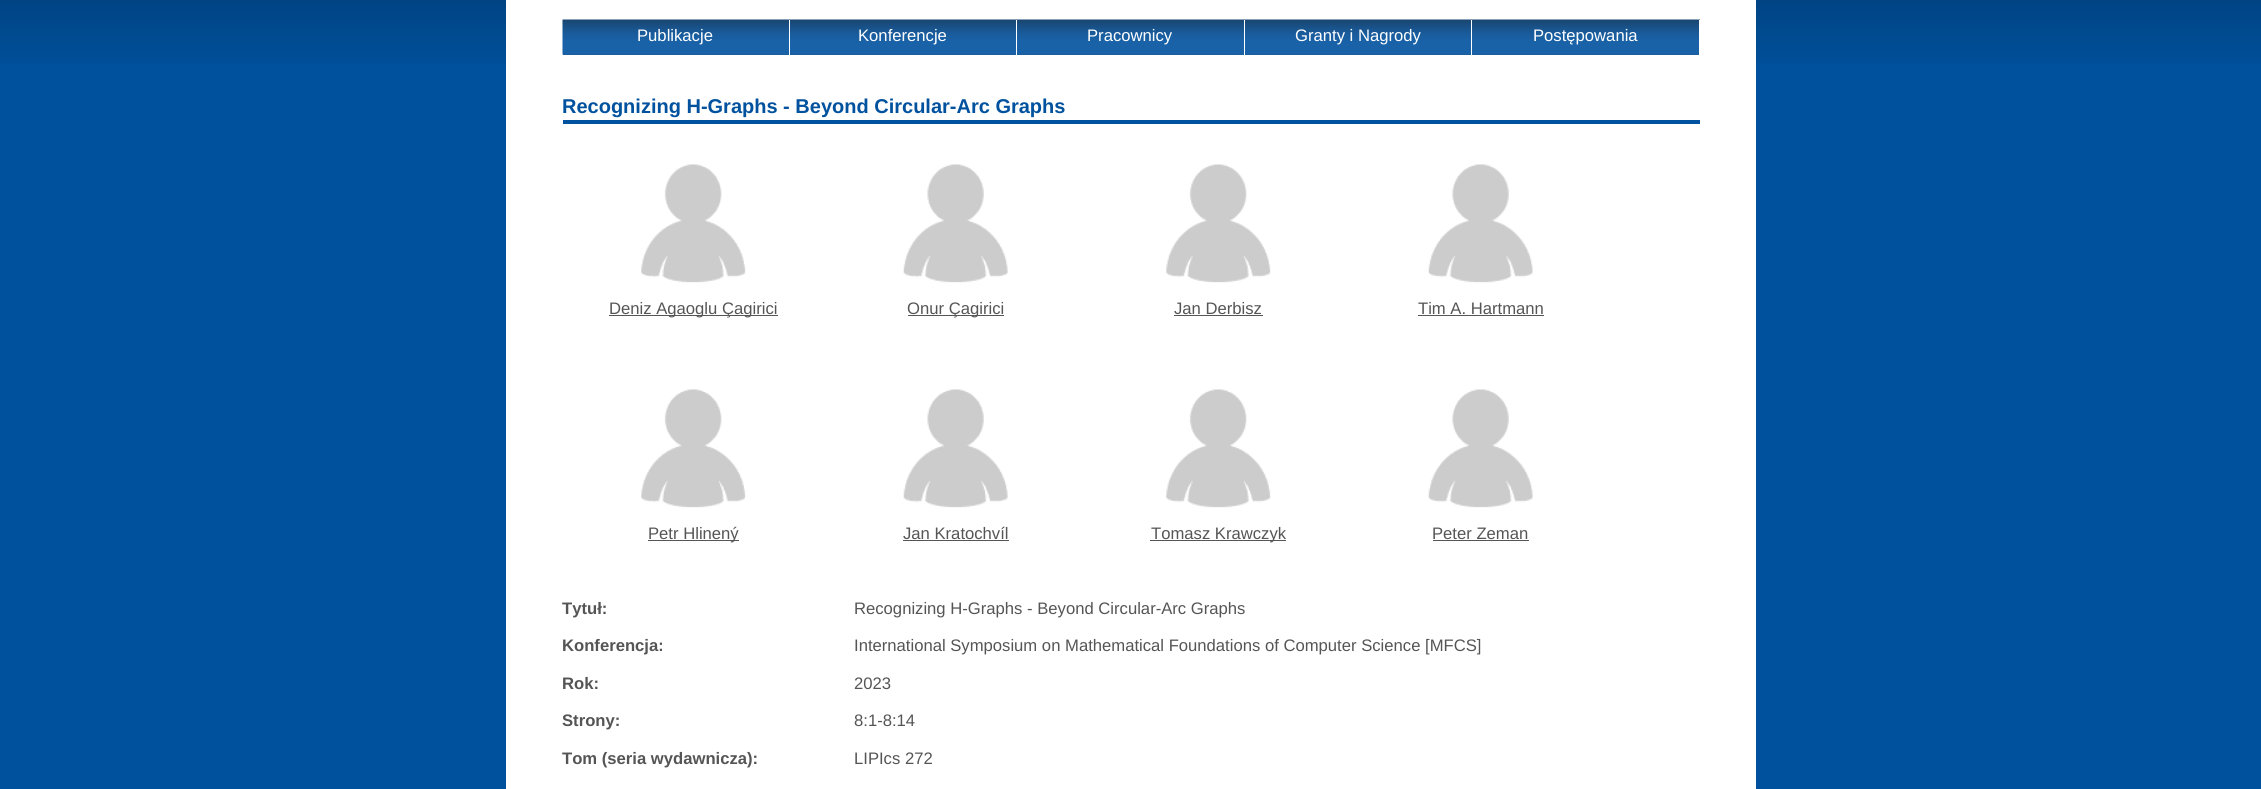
import math
import cairo

surface = cairo.ImageSurface(cairo.FORMAT_RGB24, 2261, 789)
c = cairo.Context(surface)
options = cairo.FontOptions()
options.set_hint_metrics(cairo.HINT_METRICS_OFF)
options.set_hint_style(cairo.HINT_STYLE_NONE)
c.set_font_options(options)
c.set_miter_limit(4)
def C(code):
 c.set_source_rgb(*(v / 255 for v in bytes.fromhex(code[-6:])))
def F(family, size, italic, bold):
 c.select_font_face(family, cairo.FONT_SLANT_ITALIC if italic else cairo.FONT_SLANT_NORMAL, cairo.FONT_WEIGHT_BOLD if bold else cairo.FONT_WEIGHT_NORMAL)
 c.set_font_size(size)
def T(x, y, s):
 c.move_to(x, y)
 c.show_text(s)
def R(x, y, w, h):
 c.rectangle(x, y, w, h)
 c.fill()
def I(path, x, y, w, h):
 c.save()
 c.set_source_surface(cairo.ImageSurface.create_from_png(path), x, y)
 c.rectangle(x, y, w, h)
 c.fill()
 c.restore()
C('00519d')
c.paint()
I('1.png',0,0,2261,63)
C('ffffff')
R(506,0,1250,789)
C('00519d')
R(563,54,1136,1)
I('2.png',562,19,1138,36)
C('ffffff')
R(789,20,1,35)
F('Liberation Sans',16.65,0,0)
T(637,41,'Publikacje')
R(1016,20,1,35)
T(858,41,'Konferencje')
R(1244,20,1,35)
T(1087,41,'Pracownicy')
R(1471,20,1,35)
T(1295,41,'Granty i Nagrody')
R(1699,20,1,35)
T(1533,41,'Postępowania')
C('00519e')
R(563,120,1137,4)
F('Liberation Sans',20,0,1)
T(562,113,'Recognizing H-Graphs - Beyond Circular-Arc Graphs')
I('3.png',641,164,105,119)
C('555555')
R(609,315,169,1)
F('Liberation Sans',16.65,0,0)
T(609,314,'Deniz Agaoglu Çagirici')
I('4.png',903,164,105,119)
R(908,315,96,1)
T(907,314,'Onur Çagirici')
I('5.png',1166,164,105,119)
T(1174,314,'Jan Derbisz')
R(1174,315,89,1)
I('4.png',1428,164,105,119)
T(1418,314,'Tim A. Hartmann')
R(1418,315,126,1)
I('3.png',641,389,105,119)
R(648,540,91,1)
T(648,539,'Petr Hlinený')
I('4.png',903,389,105,119)
T(903,539,'Jan Kratochvíl')
R(903,540,106,1)
I('5.png',1166,389,105,119)
R(1150,540,136,1)
T(1151,539,'Tomasz Krawczyk')
I('4.png',1428,389,105,119)
T(1432,539,'Peter Zeman')
R(1433,540,96,1)
F('Liberation Sans',16.65,0,1)
T(562,614,'Tytuł:')
F('Liberation Sans',16.65,0,0)
T(854,614,'Recognizing H-Graphs - Beyond Circular-Arc Graphs')
F('Liberation Sans',16.65,0,1)
T(562,651,'Konferencja:')
F('Liberation Sans',16.65,0,0)
T(854,651,'International Symposium on Mathematical Foundations of Computer Science [MFCS]')
F('Liberation Sans',16.65,0,1)
T(562,689,'Rok:')
F('Liberation Sans',16.65,0,0)
T(854,689,'2023')
F('Liberation Sans',16.65,0,1)
T(562,726,'Strony:')
F('Liberation Sans',16.65,0,0)
T(854,726,'8:1-8:14')
F('Liberation Sans',16.65,0,1)
T(562,764,'Tom (seria wydawnicza):')
F('Liberation Sans',16.65,0,0)
T(854,764,'LIPIcs 272')
surface.write_to_png('o.png')
